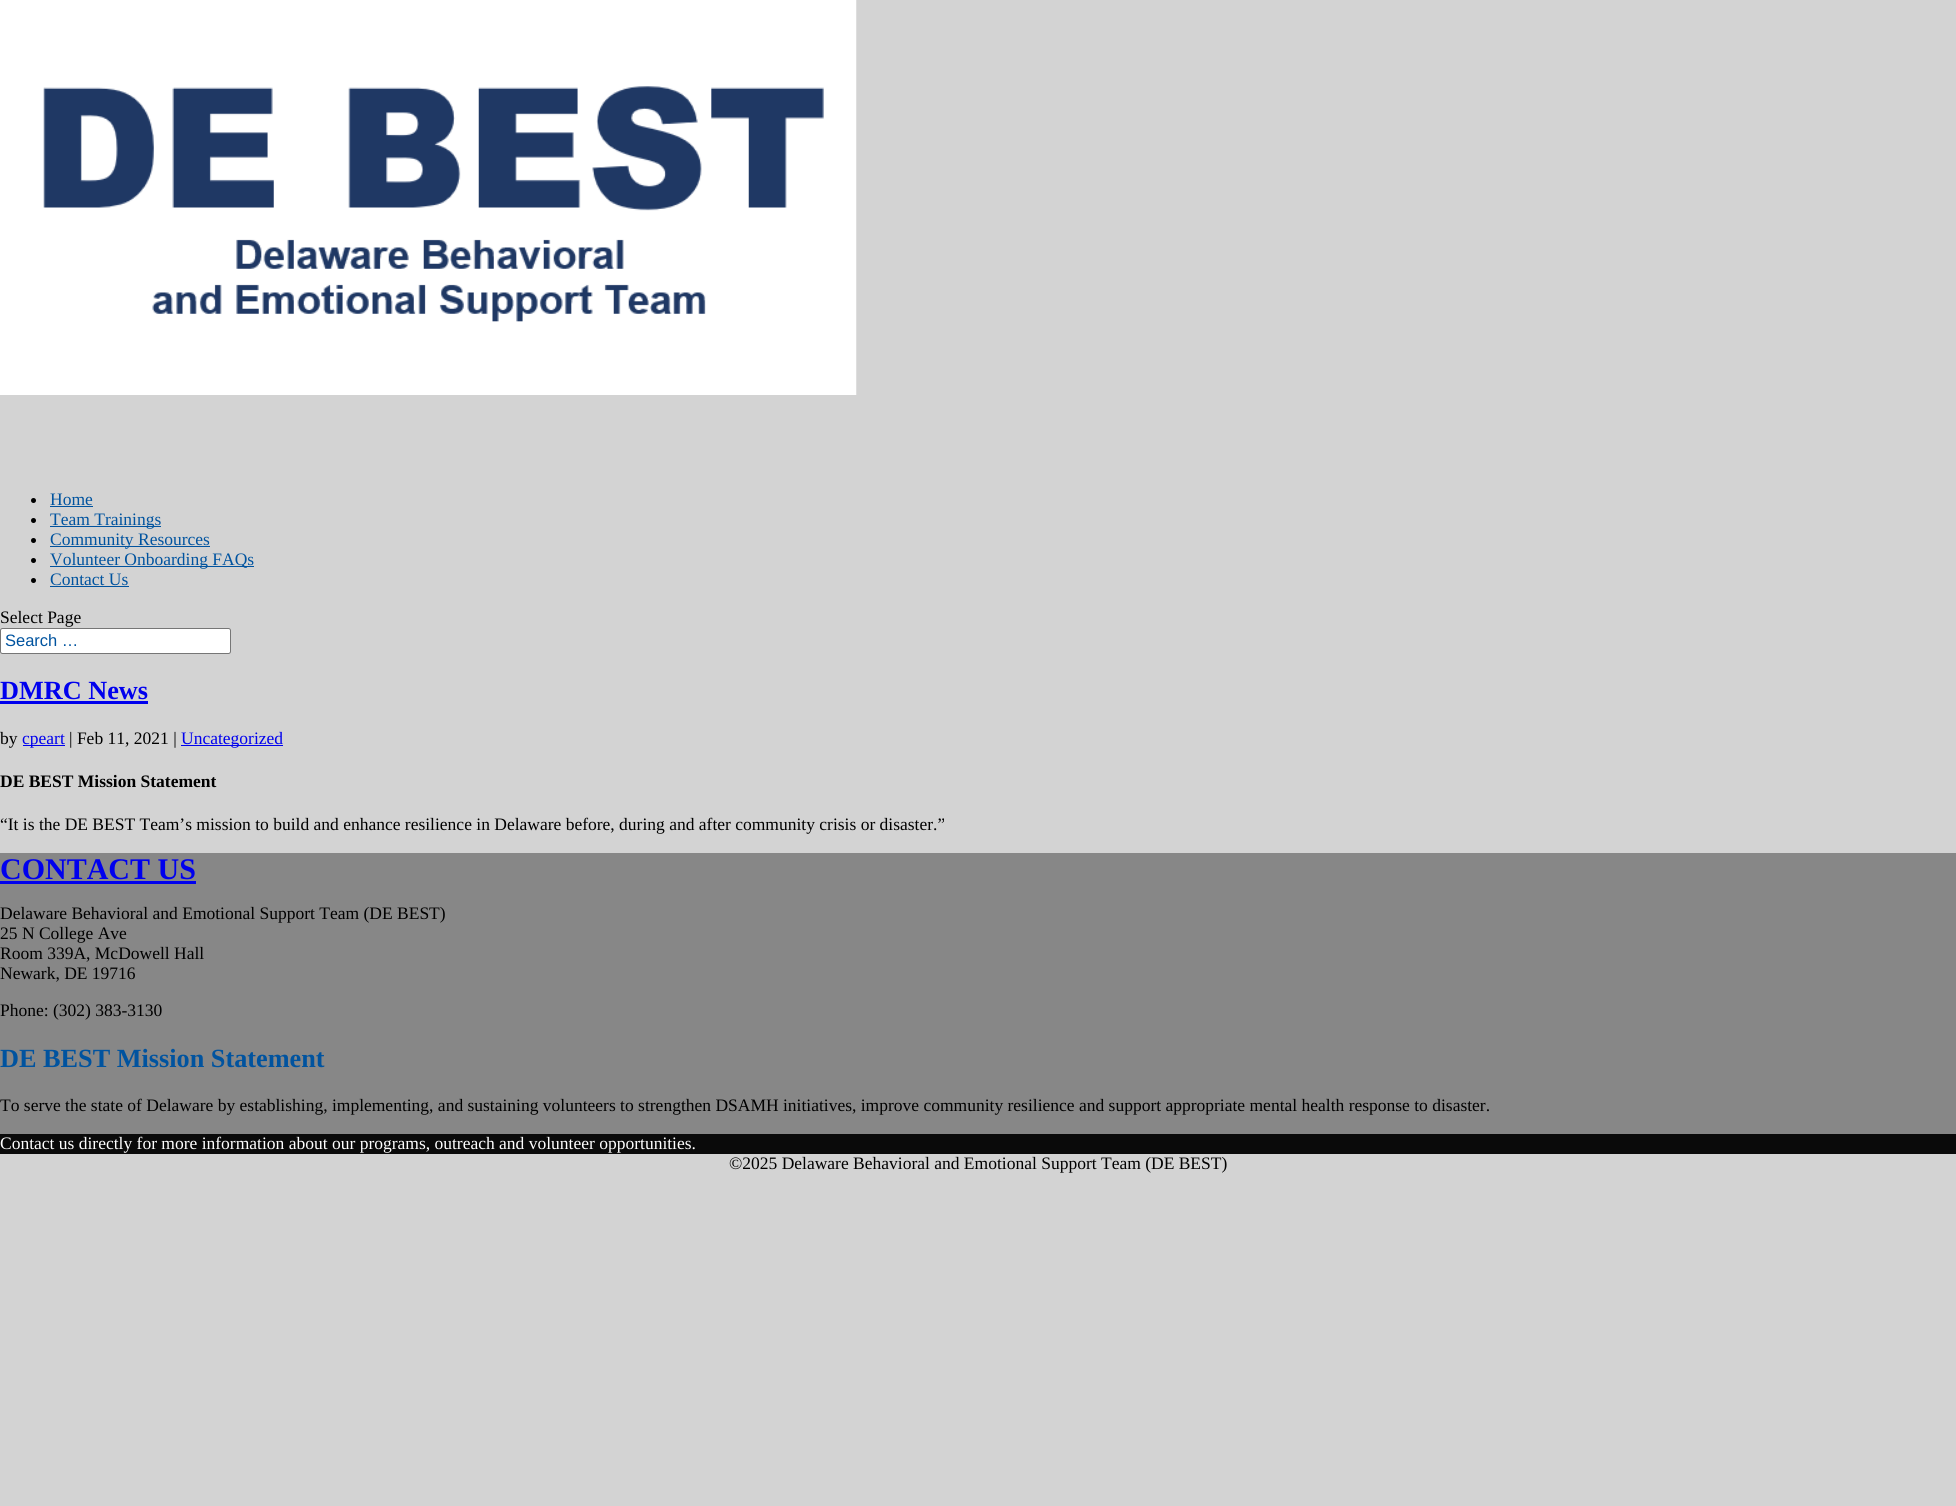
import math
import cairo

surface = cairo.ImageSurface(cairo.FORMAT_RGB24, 1956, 1506)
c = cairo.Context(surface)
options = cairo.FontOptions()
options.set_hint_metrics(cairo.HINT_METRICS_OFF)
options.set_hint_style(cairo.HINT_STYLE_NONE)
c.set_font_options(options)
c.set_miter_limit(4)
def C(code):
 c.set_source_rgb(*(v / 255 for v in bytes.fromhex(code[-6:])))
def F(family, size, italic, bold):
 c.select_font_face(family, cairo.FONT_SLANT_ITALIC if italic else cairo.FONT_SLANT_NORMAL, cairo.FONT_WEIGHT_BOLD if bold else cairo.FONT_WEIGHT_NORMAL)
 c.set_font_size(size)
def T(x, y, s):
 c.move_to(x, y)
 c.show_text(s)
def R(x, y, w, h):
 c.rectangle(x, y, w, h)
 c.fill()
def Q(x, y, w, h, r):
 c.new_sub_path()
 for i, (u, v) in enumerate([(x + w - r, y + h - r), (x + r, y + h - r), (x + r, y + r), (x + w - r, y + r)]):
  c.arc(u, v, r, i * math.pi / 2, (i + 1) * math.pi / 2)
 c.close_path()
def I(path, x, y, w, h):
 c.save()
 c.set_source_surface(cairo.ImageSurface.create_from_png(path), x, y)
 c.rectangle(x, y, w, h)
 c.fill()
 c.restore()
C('d3d3d3')
c.paint()
I('1.png',0,0,857,395)
C('000000')
c.arc(33.5,500.5,2.5,0,2 * math.pi)
c.fill()
F('Liberation Serif',17.5,0,0)
C('00539f')
T(50,505,'Home')
R(50,506,43,1)
C('000000')
c.new_path()
c.arc(33.5,520.5,2.5,0,2 * math.pi)
c.fill()
C('00539f')
R(50,526,111,1)
T(50,525,'Team Trainings')
C('000000')
c.new_path()
c.arc(33.5,540.5,2.5,0,2 * math.pi)
c.fill()
C('00539f')
R(50,546,160,1)
T(50,545,'Community Resources')
C('000000')
c.new_path()
c.arc(33.5,560.5,2.5,0,2 * math.pi)
c.fill()
C('00539f')
R(50,566,204,1)
T(50,565,'Volunteer Onboarding FAQs')
C('000000')
c.new_path()
c.arc(33.5,580.5,2.5,0,2 * math.pi)
c.fill()
C('00539f')
T(50,585,'Contact Us')
R(50,586,79,1)
C('000000')
T(0,623,'Select Page')
C('ffffff')
Q(.5,628.5,230,25,2)
c.fill_preserve()
C('767676')
c.set_line_width(1)
c.stroke()
F('Liberation Sans',16.5,0,0)
C('00539f')
T(5,646,'Search …')
F('Liberation Serif',26.25,0,1)
C('0000ee')
T(0,699,'DMRC News')
R(0,701,148,3)
F('Liberation Serif',17.5,0,0)
C('000000')
T(0,744,'by')
C('0000ee')
R(23,745,42,1)
T(22,744,'cpeart')
C('000000')
T(69,744,'| Feb 11, 2021 |')
C('0000ee')
R(181,745,102,1)
T(181,744,'Uncategorized')
F('Liberation Serif',17.5,0,1)
C('000000')
T(0,787,'DE BEST Mission Statement')
F('Liberation Serif',17.5,0,0)
T(0,830,'“It is the DE BEST Team’s mission to build and enhance resilience in Delaware before, during and after community crisis or disaster.”')
C('878787')
R(0,853,1956,281)
F('Liberation Serif',30,0,1)
C('0000ee')
T(0,879,'CONTACT US')
R(0,881,196,3)
F('Liberation Serif',17.5,0,0)
C('000000')
T(0,919,'Delaware Behavioral and Emotional Support Team (DE BEST)')
T(0,939,'25 N College Ave')
T(0,959,'Room 339A, McDowell Hall')
T(0,979,'Newark, DE 19716')
T(0,1016,'Phone: (302) 383-3130')
F('Liberation Serif',26.25,0,1)
C('00539f')
T(0,1067,'DE BEST Mission Statement')
F('Liberation Serif',17.5,0,0)
C('000000')
T(0,1111,'To serve the state of Delaware by establishing, implementing, and sustaining volunteers to strengthen DSAMH initiatives, improve community resilience and support appropriate mental health response to disaster.')
C('0a0a0a')
R(0,1134,1956,20)
C('ffffff')
T(0,1149,'Contact us directly for more information about our programs, outreach and volunteer opportunities.')
C('000000')
T(729,1169,'©2025 Delaware Behavioral and Emotional Support Team (DE BEST)')
surface.write_to_png('o.png')
